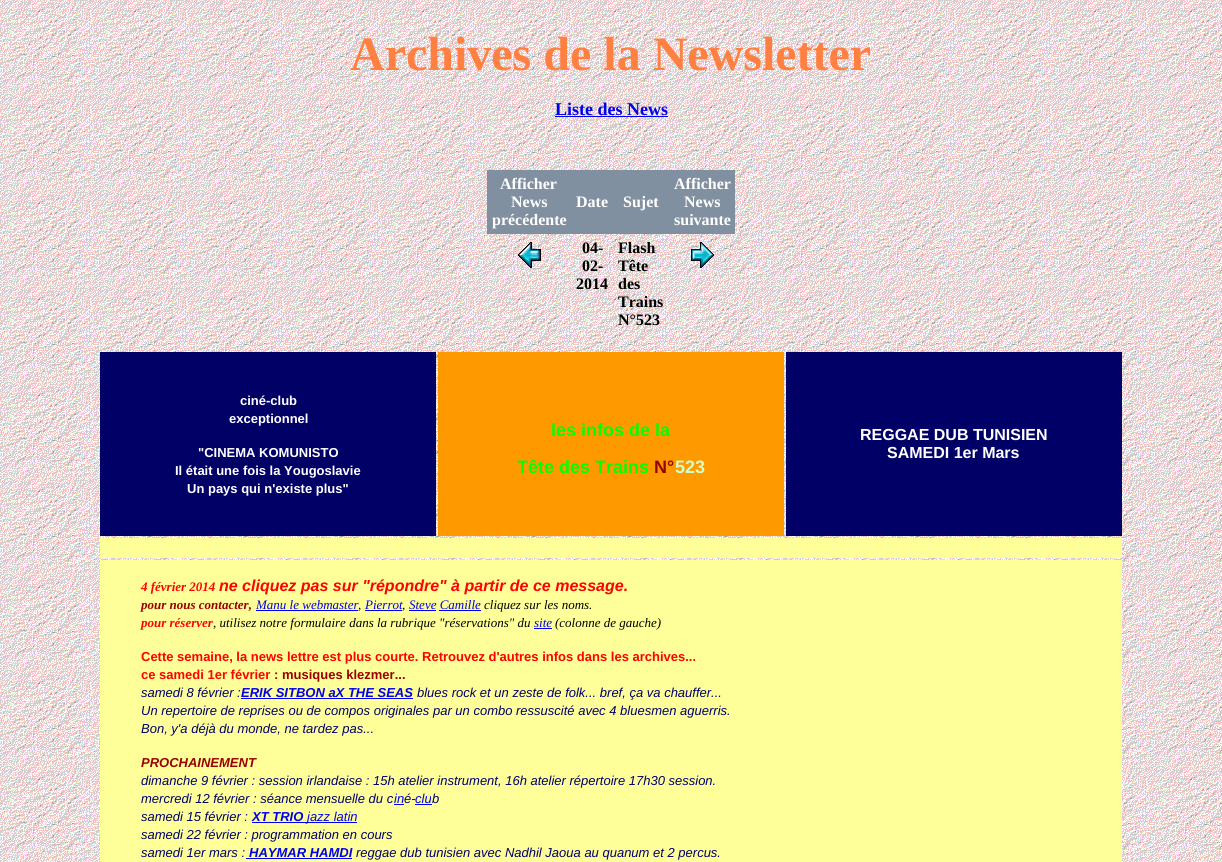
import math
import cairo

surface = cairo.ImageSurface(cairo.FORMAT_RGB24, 1222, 862)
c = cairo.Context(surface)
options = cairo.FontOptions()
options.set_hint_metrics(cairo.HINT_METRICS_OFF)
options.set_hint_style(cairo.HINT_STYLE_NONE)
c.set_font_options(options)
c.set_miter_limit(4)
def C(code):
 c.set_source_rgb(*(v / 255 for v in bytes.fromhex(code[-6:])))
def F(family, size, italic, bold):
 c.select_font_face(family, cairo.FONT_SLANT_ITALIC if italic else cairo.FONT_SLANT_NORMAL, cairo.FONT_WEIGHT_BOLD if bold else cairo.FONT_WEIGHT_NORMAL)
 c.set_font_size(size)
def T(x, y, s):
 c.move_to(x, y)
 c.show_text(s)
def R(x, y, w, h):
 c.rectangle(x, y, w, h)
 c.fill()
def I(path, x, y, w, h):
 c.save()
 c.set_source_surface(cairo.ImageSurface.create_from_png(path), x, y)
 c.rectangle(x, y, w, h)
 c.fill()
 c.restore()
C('ffffff')
c.paint()
I('1.png',0,0,1222,862)
F('Liberation Serif',48,0,1)
C('ff8040')
T(350,70,'Archives de la Newsletter')
F('Liberation Serif',18,0,1)
C('0000ee')
T(555,115,'Liste des News')
R(555,116,113,1)
C('8090a0')
R(487,170,248,64)
F('Liberation Serif',16,0,1)
C('ffffff')
T(500,189,'Afficher')
T(511,207,'News')
T(492,225,'précédente')
T(576,207,'Date')
T(623,207,'Sujet')
T(674,189,'Afficher')
T(684,207,'News')
T(674,225,'suivante')
I('2.png',518,242,23,26)
C('000000')
T(582,253,'04-')
T(582,271,'02-')
T(576,289,'2014')
T(618,253,'Flash')
T(618,271,'Tête')
T(618,289,'des')
T(618,307,'Trains')
T(618,325,'N°523')
I('3.png',691,242,23,26)
C('000066')
R(100,352,336,184)
F('Liberation Sans',13,0,1)
C('ffffff')
T(240,405,'ciné-club')
T(229,423,'exceptionnel')
T(198,457,'"CINEMA KOMUNISTO')
T(175,475,'Il était une fois la Yougoslavie')
T(187,493,'Un pays qui n\'existe plus"')
C('ff9900')
R(438,352,346,184)
F('Liberation Sans',18,0,1)
C('00ff00')
T(551,436,'les infos de la')
T(517,473,'Tête des Trains')
C('990000')
T(654,473,'N°')
C('ccffcc')
T(675,473,'523')
C('000066')
R(786,352,336,184)
F('Liberation Sans',16,0,1)
C('ffffff')
T(860,440,'REGGAE DUB TUNISIEN')
T(887,458,'SAMEDI 1er Mars')
C('ffff99')
R(100,538,1022,20)
R(100,560,1022,302)
F('Liberation Serif',13,1,1)
C('ff0000')
T(141,591,'4 février 2014')
F('Liberation Sans',16,1,1)
T(219,591,'ne cliquez pas sur "répondre" à partir de ce message.')
F('Liberation Serif',13,1,1)
C('990000')
T(141,609,'pour nous contacter,')
F('Liberation Serif',13,1,0)
C('0000ee')
T(256,609,'Manu le webmaster')
C('000000')
T(358,609,',')
C('0000ee')
R(256,610,102,1)
T(365,609,'Pierrot')
C('000000')
T(402,609,',')
C('0000ee')
R(365,610,37,1)
R(409,610,27,1)
T(409,609,'Steve Camille')
R(439,610,42,1)
C('000000')
T(484,609,'cliquez sur les noms.')
F('Liberation Serif',13,1,1)
C('ff0000')
T(141,627,'pour réserver')
F('Liberation Serif',13,1,0)
C('000000')
T(213,627,', utilisez notre formulaire dans la rubrique "réservations" du')
C('0000ee')
T(534,627,'site')
R(534,628,18,1)
C('000000')
T(555,627,'(colonne de gauche)')
F('Liberation Sans',13,0,1)
C('ff0000')
T(141,661,'Cette semaine, la news lettre est plus courte. Retrouvez d\'autres infos dans les archives...')
T(141,679,'ce samedi 1er février')
C('990000')
T(274,679,': musiques klezmer...')
F('Liberation Sans',13,1,0)
C('000066')
T(141,697,'samedi 8 février :')
C('0000ee')
R(241,698,172,1)
F('Liberation Sans',13,1,1)
T(241,697,'ERIK SITBON aX THE SEAS')
F('Liberation Sans',13,1,0)
C('000066')
T(417,697,'blues rock et un zeste de folk... bref, ça va chauffer...')
T(141,715,'Un repertoire de reprises ou de compos originales par un combo ressuscité avec 4 bluesmen aguerris.')
T(141,733,'Bon, y\'a déjà du monde, ne tardez pas...')
F('Liberation Sans',13,1,1)
C('990000')
T(141,767,'PROCHAINEMENT')
F('Liberation Sans',13,1,0)
C('000066')
T(141,785,'dimanche 9 février : session irlandaise : 15h atelier instrument, 16h atelier répertoire 17h30 session.')
T(141,803,'mercredi 12 février : séance mensuelle du c')
C('0000ee')
R(394,804,10,1)
T(394,803,'in')
C('000066')
T(404,803,'é-')
C('0000ee')
R(415,804,17,1)
T(415,803,'clu')
C('000066')
T(432,803,'b')
T(141,821,'samedi 15 février :')
F('Liberation Sans',13,1,1)
C('0000ee')
T(252,821,'XT TRIO')
R(252,822,105,1)
F('Liberation Sans',13,1,0)
T(307,821,'jazz latin')
C('000066')
T(141,839,'samedi 22 février : programmation en cours')
T(141,857,'samedi 1er mars :')
F('Liberation Sans',13,1,1)
C('0000ee')
T(249,857,'HAYMAR HAMDI')
R(246,858,106,1)
F('Liberation Sans',13,1,0)
C('000066')
T(356,857,'reggae dub tunisien avec Nadhil Jaoua au quanum et 2 percus.')
surface.write_to_png('o.png')
